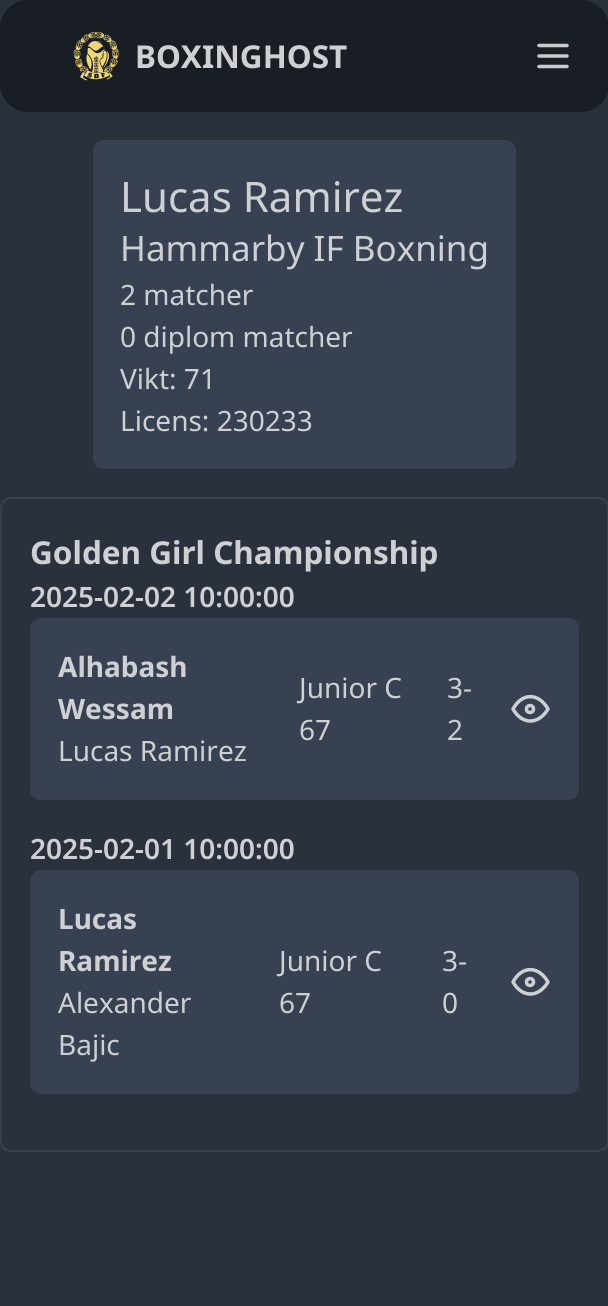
import math
import cairo

surface = cairo.ImageSurface(cairo.FORMAT_RGB24, 608, 1306)
c = cairo.Context(surface)
options = cairo.FontOptions()
options.set_hint_metrics(cairo.HINT_METRICS_OFF)
options.set_hint_style(cairo.HINT_STYLE_NONE)
c.set_font_options(options)
c.set_miter_limit(4)
def C(code):
 c.set_source_rgb(*(v / 255 for v in bytes.fromhex(code[-6:])))
def F(family, size, italic, bold):
 c.select_font_face(family, cairo.FONT_SLANT_ITALIC if italic else cairo.FONT_SLANT_NORMAL, cairo.FONT_WEIGHT_BOLD if bold else cairo.FONT_WEIGHT_NORMAL)
 c.set_font_size(size)
def T(x, y, s):
 c.move_to(x, y)
 c.show_text(s)
def Q(x, y, w, h, r):
 c.new_sub_path()
 for i, (u, v) in enumerate([(x + w - r, y + h - r), (x + r, y + h - r), (x + r, y + r), (x + w - r, y + r)]):
  c.arc(u, v, r, i * math.pi / 2, (i + 1) * math.pi / 2)
 c.close_path()
def I(path, x, y, w, h):
 c.save()
 c.set_source_surface(cairo.ImageSurface.create_from_png(path), x, y)
 c.rectangle(x, y, w, h)
 c.fill()
 c.restore()
C('2a303c')
c.paint()
C('191d24')
Q(0,0,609,112,28)
c.fill()
I('1.png',73,32,46,49)
F('Noto Sans',31.5,0,1)
C('cfd0d3')
T(135,68,'BOXINGHOST')
c.new_path()
c.move_to(539,45.5)
c.line_to(567,45.5)
c.move_to(539,56)
c.line_to(567,56)
c.move_to(539,66.5)
c.line_to(567,66.5)
C('cacbce')
c.set_line_width(3.5)
c.set_line_cap(cairo.LINE_CAP_ROUND)
c.set_line_join(cairo.LINE_JOIN_ROUND)
c.stroke()
C('374151')
Q(93,140,423,329,11)
c.fill()
F('Noto Sans',42,0,0)
C('cfd0d3')
T(120,212,'Lucas Ramirez')
F('Noto Sans',35,0,0)
T(120,261,'Hammarby IF Boxning')
F('Noto Sans',28,0,0)
T(120,305,'2 matcher')
T(120,347,'0 diplom matcher')
T(120,389,'Vikt: 71')
T(120,431,'Licens: 230233')
Q(1,498,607,653,10)
C('374151')
c.set_line_width(2)
c.set_line_cap(cairo.LINE_CAP_BUTT)
c.set_line_join(cairo.LINE_JOIN_MITER)
c.stroke()
F('Noto Sans',31.5,0,1)
C('cfd0d3')
T(30,564,'Golden Girl Championship')
F('Noto Sans SemiBold',28,0,0)
T(30,607,'2025-02-02 10:00:00')
C('374151')
Q(30,618,549,182,11)
c.fill()
F('Noto Sans',28,0,1)
C('cfd0d3')
T(58,677,'Alhabash')
T(58,719,'Wessam')
F('Noto Sans',28,0,0)
T(58,761,'Lucas Ramirez')
T(299,698,'Junior C')
T(299,740,'67')
T(447,698,'3-')
T(447,740,'2')
c.new_path()
c.arc(530,709,3.5,0,2 * math.pi)
c.set_line_width(3.5)
c.stroke()
c.new_path()
c.move_to(548,709)
c.curve_to(538.5,725,522,725,513,709)
c.curve_to(522,692.5,538.5,692.5,548,709)
c.set_line_cap(cairo.LINE_CAP_ROUND)
c.set_line_join(cairo.LINE_JOIN_ROUND)
c.stroke()
F('Noto Sans SemiBold',28,0,0)
T(30,859,'2025-02-01 10:00:00')
C('374151')
Q(30,870,549,224,11)
c.fill()
F('Noto Sans',28,0,1)
C('cfd0d3')
T(58,929,'Lucas')
T(58,971,'Ramirez')
F('Noto Sans',28,0,0)
T(58,1013,'Alexander')
T(58,1055,'Bajic')
T(279,971,'Junior C')
T(279,1013,'67')
T(442,971,'3-')
T(442,1013,'0')
c.new_path()
c.arc(530,982,3.5,0,2 * math.pi)
c.set_line_cap(cairo.LINE_CAP_BUTT)
c.set_line_join(cairo.LINE_JOIN_MITER)
c.stroke()
c.new_path()
c.move_to(548,982)
c.curve_to(538.5,998,522,998,513,982)
c.curve_to(522,965.5,538.5,965.5,548,982)
c.set_line_cap(cairo.LINE_CAP_ROUND)
c.set_line_join(cairo.LINE_JOIN_ROUND)
c.stroke()
surface.write_to_png('o.png')
